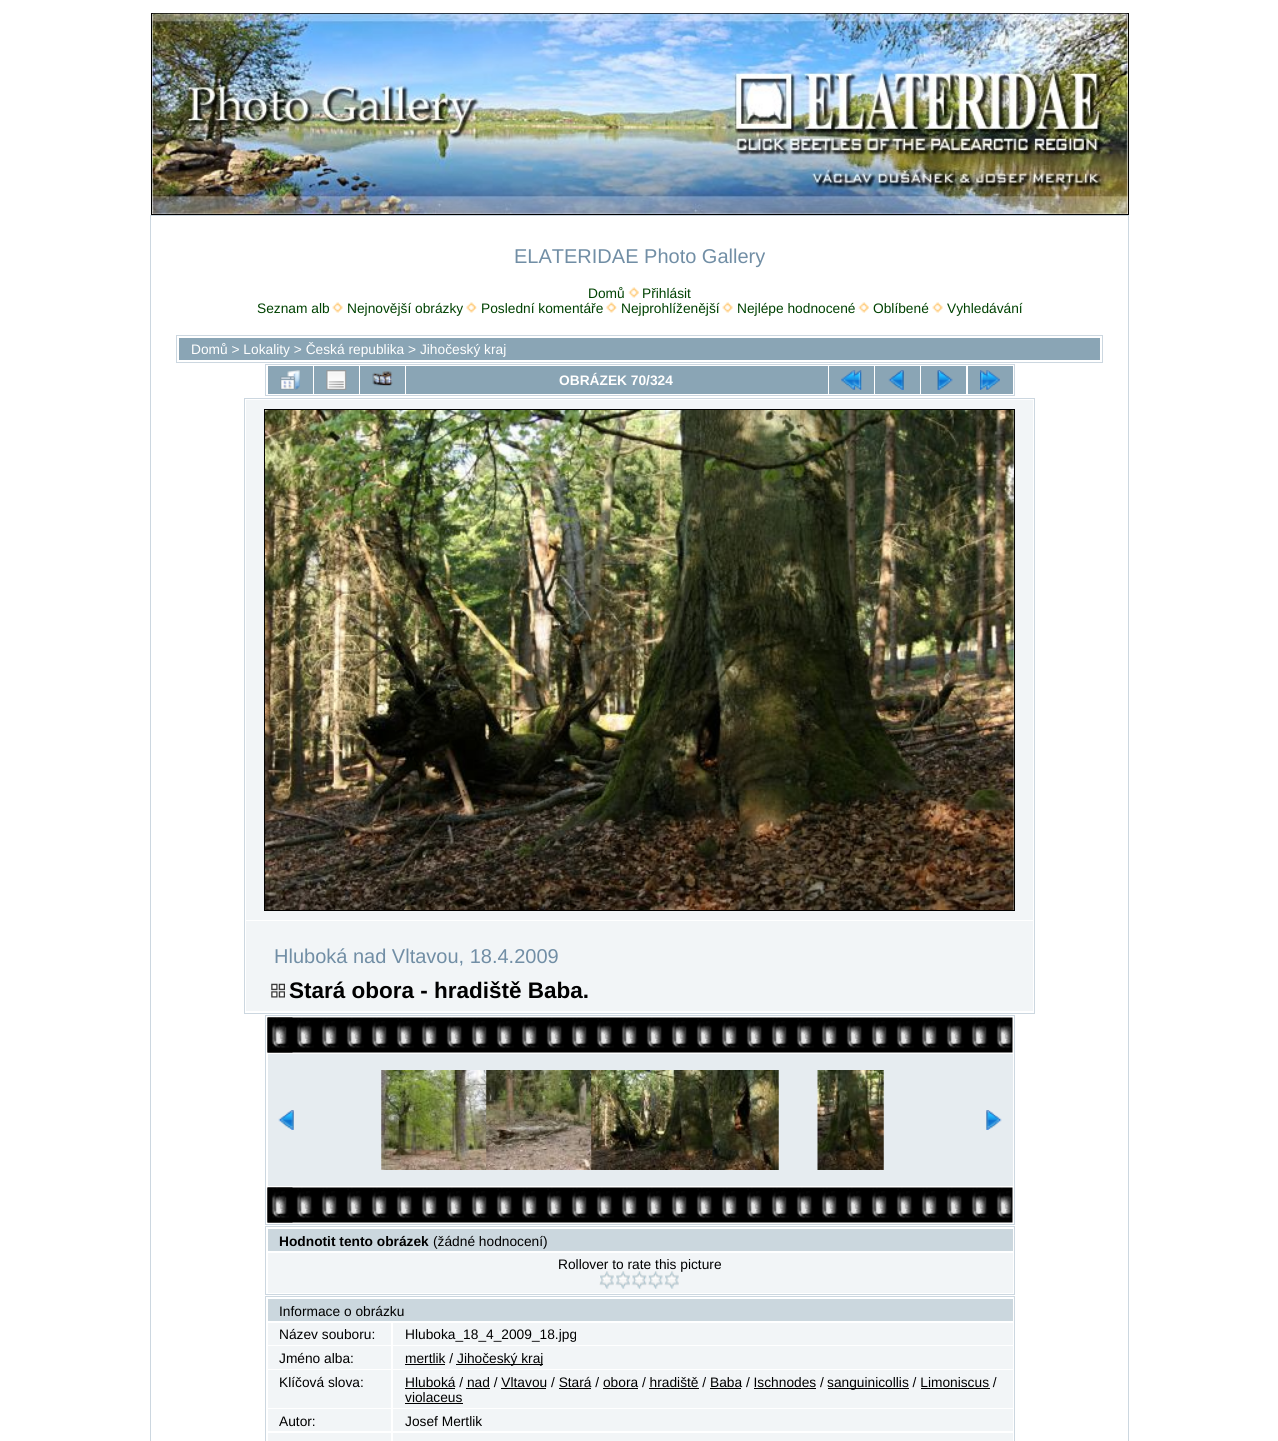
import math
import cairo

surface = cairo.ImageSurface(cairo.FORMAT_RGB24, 1278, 1441)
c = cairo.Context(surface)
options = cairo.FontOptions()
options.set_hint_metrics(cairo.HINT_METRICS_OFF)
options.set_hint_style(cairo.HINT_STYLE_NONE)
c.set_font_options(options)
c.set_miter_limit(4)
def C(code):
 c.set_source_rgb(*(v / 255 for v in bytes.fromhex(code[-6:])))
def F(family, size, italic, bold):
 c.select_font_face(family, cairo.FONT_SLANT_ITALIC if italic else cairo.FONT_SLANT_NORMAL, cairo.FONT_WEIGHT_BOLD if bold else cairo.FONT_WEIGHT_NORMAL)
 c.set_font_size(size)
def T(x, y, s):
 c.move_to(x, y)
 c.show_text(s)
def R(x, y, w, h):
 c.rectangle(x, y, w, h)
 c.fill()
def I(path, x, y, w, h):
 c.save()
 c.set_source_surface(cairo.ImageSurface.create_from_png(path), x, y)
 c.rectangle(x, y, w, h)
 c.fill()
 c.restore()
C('ffffff')
c.paint()
c.rectangle(151.5,13.5,977,201)
C('000000')
c.set_line_width(1)
c.stroke()
I('1.png',152,13,976,201)
c.rectangle(150.5,215.5,978,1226)
C('ccd7e0')
c.stroke()
F('Liberation Sans',20,0,0)
C('718ea5')
T(514,263,'ELATERIDAE Photo Gallery')
F('Liberation Sans',13.75,0,0)
C('004201')
T(588,298,'Domů')
I('2.png',628,287,11,11)
T(642,298,'Přihlásit')
T(257,313,'Seznam alb')
I('3.png',332,302,11,11)
T(347,313,'Nejnovější obrázky')
I('4.png',466,302,11,11)
T(481,313,'Poslední komentáře')
I('4.png',606,302,11,11)
T(621,313,'Nejprohlíženější')
I('3.png',722,302,11,11)
T(737,313,'Nejlépe hodnocené')
I('5.png',858,302,11,11)
T(873,313,'Oblíbené')
I('6.png',932,302,11,11)
T(947,313,'Vyhledávání')
c.rectangle(176.5,335.5,926,27)
C('ccd7e0')
c.stroke()
C('8aa5b5')
R(179,338,921,22)
C('ffffff')
T(191,354,'Domů > Lokality > Česká republika > Jihočeský kraj')
c.rectangle(265.5,364.5,749,31)
C('ccd7e0')
c.stroke()
C('8aa5b5')
R(268,366,45,28)
I('7.png',280,370,20,20)
R(314,366,45,28)
I('8.png',326,370,21,20)
R(360,366,45,28)
I('9.png',372,371,21,15)
R(406,366,422,28)
F('Liberation Sans',13.75,0,1)
C('ffffff')
T(559,385,'OBRÁZEK 70/324')
C('8aa5b5')
R(829,366,45,28)
I('10.png',841,370,21,20)
R(875,366,45,28)
I('11.png',888,370,16,20)
R(921,366,45,28)
I('12.png',937,370,16,20)
R(968,366,45,28)
I('13.png',980,370,20,20)
c.rectangle(244.5,398.5,790,615)
C('ccd7e0')
c.stroke()
C('f2f5f7')
R(246,400,787,520)
c.rectangle(264.5,409.5,750,501)
C('000000')
c.stroke()
I('14.png',265,410,749,500)
C('f2f5f7')
R(246,921,787,90)
F('Liberation Sans',20,0,0)
C('718ea5')
T(274,963,'Hluboká nad Vltavou, 18.4.2009')
I('15.png',271,983,14,15)
F('Liberation Sans',22.5,0,1)
C('000000')
T(289,998,'Stará obora - hradiště Baba.')
c.rectangle(265.5,1015.5,749,209)
C('ccd7e0')
c.stroke()
I('16.png',267,1017,746,36)
I('17.png',267,1017,26,36)
C('e6ecf0')
R(268,1054,745,132)
I('18.png',278,1110,16,20)
I('19.png',381,1070,106,100)
I('20.png',486,1070,106,100)
I('21.png',591,1070,122,100)
I('22.png',712,1070,67,100)
I('23.png',817,1070,67,100)
I('24.png',986,1110,16,20)
I('25.png',267,1187,746,36)
I('17.png',267,1187,26,36)
c.rectangle(265.5,1226.5,749,68)
C('ccd7e0')
c.stroke()
C('cbd7de')
R(268,1229,745,22)
F('Liberation Sans',13.75,0,1)
C('000000')
T(279,1246,'Hodnotit tento obrázek')
F('Liberation Sans',13.75,0,0)
T(433,1246,'(žádné hodnocení)')
C('f2f5f7')
R(268,1253,745,40)
C('000000')
T(558,1269,'Rollover to rate this picture')
I('26.png',599,1271,16,18)
I('27.png',615,1271,15,18)
I('28.png',631,1271,16,18)
I('29.png',647,1271,16,18)
I('26.png',664,1271,16,18)
c.rectangle(265.5,1296.5,749,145)
C('ccd7e0')
c.stroke()
C('cbd7de')
R(268,1299,745,22)
C('000000')
T(279,1316,'Informace o obrázku')
C('f2f5f7')
R(268,1323,123,22)
C('000000')
T(279,1339,'Název souboru:')
C('f2f5f7')
R(393,1323,620,22)
C('000000')
T(405,1339,'Hluboka_18_4_2009_18.jpg')
C('f2f5f7')
R(268,1346,123,23)
C('000000')
T(279,1363,'Jméno alba:')
C('f2f5f7')
R(393,1346,620,23)
C('000000')
T(405,1363,'mertlik /')
R(405,1364,40,1)
R(456,1364,87,1)
T(457,1363,'Jihočeský kraj')
C('f2f5f7')
R(268,1370,123,38)
C('000000')
T(279,1387,'Klíčová slova:')
C('f2f5f7')
R(393,1370,620,38)
C('000000')
T(405,1387,'Hluboká / nad / Vltavou / Stará / obora / hradiště / Baba / Ischnodes /')
R(405,1388,50,1)
R(466,1388,24,1)
R(501,1388,45,1)
R(559,1388,32,1)
R(603,1388,35,1)
R(649,1388,50,1)
R(710,1388,31,1)
R(754,1388,62,1)
R(828,1388,81,1)
T(827,1387,'sanguinicollis / Limoniscus /')
R(921,1388,69,1)
T(405,1402,'violaceus')
R(405,1403,58,1)
C('f2f5f7')
R(268,1409,123,22)
C('000000')
T(279,1426,'Autor:')
C('f2f5f7')
R(393,1409,620,22)
C('000000')
T(405,1426,'Josef Mertlik')
C('f2f5f7')
R(268,1433,123,8)
R(393,1433,620,8)
surface.write_to_png('o.png')
